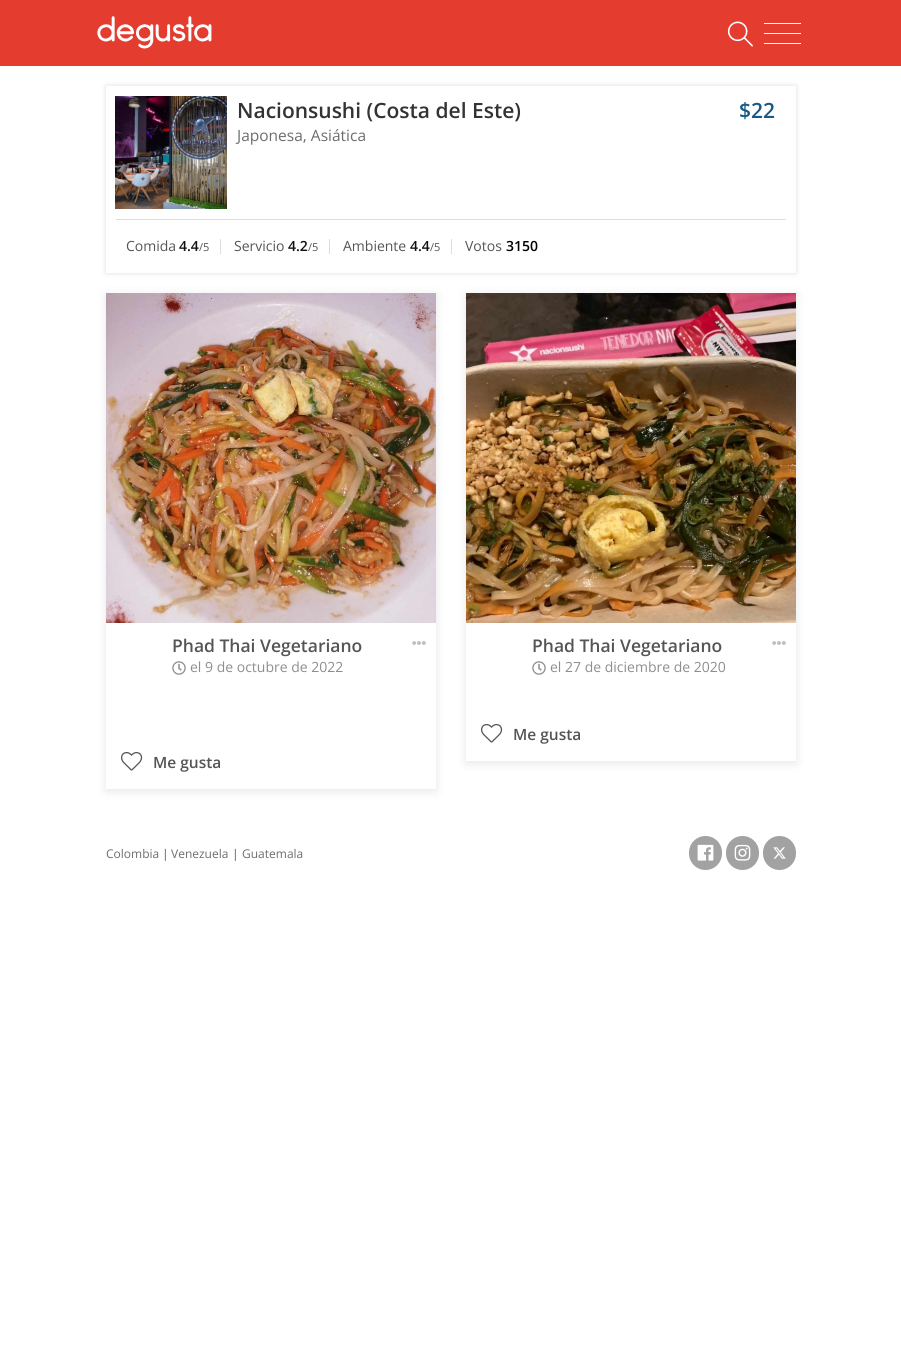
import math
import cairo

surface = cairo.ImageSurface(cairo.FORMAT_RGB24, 901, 1368)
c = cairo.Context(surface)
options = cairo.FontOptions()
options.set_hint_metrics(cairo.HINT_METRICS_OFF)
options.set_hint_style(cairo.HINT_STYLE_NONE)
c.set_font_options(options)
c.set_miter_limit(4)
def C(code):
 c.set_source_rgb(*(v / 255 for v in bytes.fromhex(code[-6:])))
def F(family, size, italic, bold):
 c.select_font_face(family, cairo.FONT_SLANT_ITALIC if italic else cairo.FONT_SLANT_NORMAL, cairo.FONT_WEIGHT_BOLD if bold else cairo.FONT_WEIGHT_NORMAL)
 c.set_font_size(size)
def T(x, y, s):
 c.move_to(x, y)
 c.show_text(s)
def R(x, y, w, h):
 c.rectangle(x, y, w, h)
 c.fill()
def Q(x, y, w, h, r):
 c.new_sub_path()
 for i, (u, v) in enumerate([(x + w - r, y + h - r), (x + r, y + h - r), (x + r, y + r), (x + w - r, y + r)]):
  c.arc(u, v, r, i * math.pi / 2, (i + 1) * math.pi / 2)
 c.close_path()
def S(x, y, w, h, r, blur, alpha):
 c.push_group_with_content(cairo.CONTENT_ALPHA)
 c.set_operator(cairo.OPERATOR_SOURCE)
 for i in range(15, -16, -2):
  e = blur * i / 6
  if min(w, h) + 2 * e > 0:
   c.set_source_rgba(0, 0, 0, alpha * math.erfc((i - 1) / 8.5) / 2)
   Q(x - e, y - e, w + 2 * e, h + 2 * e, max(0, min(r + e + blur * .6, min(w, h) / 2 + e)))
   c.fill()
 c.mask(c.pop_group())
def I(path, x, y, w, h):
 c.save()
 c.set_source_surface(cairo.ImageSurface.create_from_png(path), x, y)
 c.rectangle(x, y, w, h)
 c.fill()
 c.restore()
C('ffffff')
c.paint()
C('e43d30')
R(0,0,901,66)
I('1.png',97,16,115,33)
I('2.png',727,21,26,26)
C('ffffff')
R(764,23,37,1)
R(764,33,37,1)
R(764,43,37,1)
c.save()
c.set_fill_rule(cairo.FILL_RULE_EVEN_ODD)
c.new_path()
c.move_to(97,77)
c.line_to(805,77)
c.line_to(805,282)
c.line_to(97,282)
c.close_path()
c.move_to(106,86)
c.line_to(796,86)
c.line_to(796,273)
c.line_to(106,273)
c.close_path()
c.clip()
C('dddddd')
S(106,86,690,187,0,2.5,1)
c.restore()
I('3.png',115,96,112,113)
F('Open Sans SemiBold',21,0,0)
C('333333')
T(237,118,'Nacionsushi (Costa del Este)')
F('Open Sans',15.5,0,0)
C('6d6d6d')
T(237,141,'Japonesa, Asiática')
F('Open Sans SemiBold',21,0,0)
C('175a88')
T(739,118,'$22')
C('dddddd')
R(116,219,670,1)
F('Open Sans',14,0,0)
C('555555')
T(126,251,'Comida')
F('Open Sans SemiBold',14,0,0)
C('111111')
T(179,251,'4.4')
F('Open Sans',11,0,0)
C('555555')
T(199,251,'/5')
C('dddddd')
R(220,239,1,15)
F('Open Sans',14,0,0)
C('555555')
T(234,251,'Servicio')
F('Open Sans SemiBold',14,0,0)
C('111111')
T(288,251,'4.2')
F('Open Sans',11,0,0)
C('555555')
T(308,251,'/5')
C('dddddd')
R(329,239,1,15)
F('Open Sans',14,0,0)
C('555555')
T(343,251,'Ambiente')
F('Open Sans SemiBold',14,0,0)
C('111111')
T(410,251,'4.4')
F('Open Sans',11,0,0)
C('555555')
T(430,251,'/5')
C('dddddd')
R(451,239,1,15)
F('Open Sans',14,0,0)
C('555555')
T(465,251,'Votos')
F('Open Sans SemiBold',14,0,0)
C('000000')
T(506,251,'3150')
c.save()
c.set_fill_rule(cairo.FILL_RULE_EVEN_ODD)
c.new_path()
c.move_to(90,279)
c.line_to(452,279)
c.line_to(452,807)
c.line_to(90,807)
c.close_path()
c.move_to(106,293)
c.line_to(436,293)
c.line_to(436,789)
c.line_to(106,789)
c.close_path()
c.clip()
C('000000')
S(106,295,330,496,0,5,.1)
c.restore()
I('4.png',106,293,330,330)
F('Open Sans SemiBold',17.5,0,0)
C('555555')
T(172,652,'Phad Thai Vegetariano')
I('5.png',172,661,14,14)
F('Open Sans',14,0,0)
C('8e8e8e')
T(190,672,'el 9 de octubre de 2022')
I('6.png',412,641,14,4)
I('7.png',121,752,22,19)
F('Open Sans SemiBold',15.5,0,0)
C('555555')
T(153,768,'Me gusta')
c.save()
c.set_fill_rule(cairo.FILL_RULE_EVEN_ODD)
c.new_path()
c.move_to(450,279)
c.line_to(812,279)
c.line_to(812,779)
c.line_to(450,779)
c.close_path()
c.move_to(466,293)
c.line_to(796,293)
c.line_to(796,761)
c.line_to(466,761)
c.close_path()
c.clip()
C('000000')
S(466,295,330,468,0,5,.1)
c.restore()
I('8.png',466,293,330,330)
F('Open Sans SemiBold',17.5,0,0)
T(532,652,'Phad Thai Vegetariano')
I('5.png',532,661,14,14)
F('Open Sans',14,0,0)
C('8e8e8e')
T(550,672,'el 27 de diciembre de 2020')
I('6.png',772,641,14,4)
I('7.png',481,724,22,19)
F('Open Sans SemiBold',15.5,0,0)
C('555555')
T(513,740,'Me gusta')
F('Open Sans',12,0,0)
C('6d6d6d')
T(106,858,'Colombia')
C('555555')
T(162,858,'|')
C('6d6d6d')
T(171,858,'Venezuela')
C('555555')
T(232,858,'|')
C('6d6d6d')
T(242,858,'Guatemala')
C('a2a2a2')
Q(689,836,33,34,16.5)
c.fill()
I('9.png',697,844,17,17)
Q(726,836,33,34,16.5)
c.fill()
I('10.png',734,844,17,17)
Q(763,836,33,34,16.5)
c.fill()
I('11.png',773,847,13,12)
surface.write_to_png('o.png')
